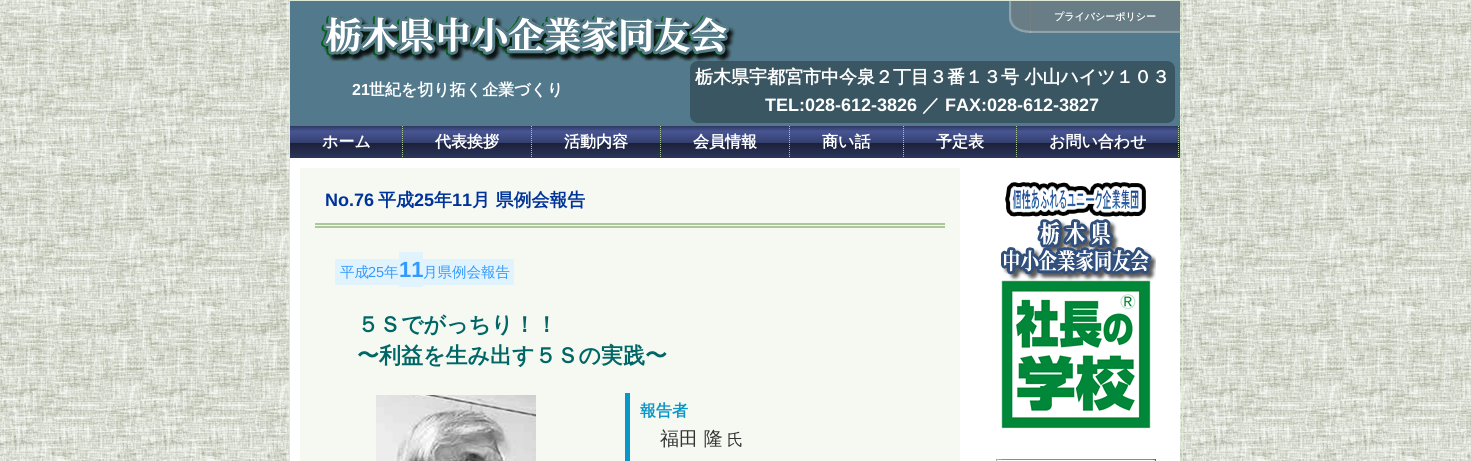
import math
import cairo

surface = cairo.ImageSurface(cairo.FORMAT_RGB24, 1471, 461)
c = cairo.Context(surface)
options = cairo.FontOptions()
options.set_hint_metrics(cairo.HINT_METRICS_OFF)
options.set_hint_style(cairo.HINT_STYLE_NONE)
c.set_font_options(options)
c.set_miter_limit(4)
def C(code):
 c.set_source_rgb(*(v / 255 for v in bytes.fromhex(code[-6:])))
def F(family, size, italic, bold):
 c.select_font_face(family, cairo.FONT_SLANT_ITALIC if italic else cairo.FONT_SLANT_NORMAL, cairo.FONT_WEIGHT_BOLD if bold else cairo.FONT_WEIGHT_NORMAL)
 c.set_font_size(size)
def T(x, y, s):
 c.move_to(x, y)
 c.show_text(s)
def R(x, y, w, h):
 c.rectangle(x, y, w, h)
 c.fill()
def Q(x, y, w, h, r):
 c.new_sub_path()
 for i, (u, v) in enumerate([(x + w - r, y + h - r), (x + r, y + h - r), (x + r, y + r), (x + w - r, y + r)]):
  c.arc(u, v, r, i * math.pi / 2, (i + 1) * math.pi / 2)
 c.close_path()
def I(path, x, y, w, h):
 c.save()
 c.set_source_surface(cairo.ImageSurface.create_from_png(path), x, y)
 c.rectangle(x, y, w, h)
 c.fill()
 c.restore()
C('ffffff')
c.paint()
I('1.png',0,0,1471,461)
c.rectangle(289.5,.5,893,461)
C('dee9d6')
c.set_line_width(1)
c.stroke()
C('ffffff')
R(290,158,890,303)
I('2.png',290,1,890,125)
I('3.png',323,15,413,46)
I('4.png',1009,1,22,32)
I('5.png',1030,1,150,32)
F('WenQuanYi Zen Hei',10,0,1)
T(1054,20,'プライバシーポリシー')
F('Liberation Sans',16,0,1)
T(352,95,'21')
F('WenQuanYi Zen Hei',16,0,1)
T(369,95,'世紀を切り拓く企業づくり')
c.set_source_rgba(0,0,0,0.3)
Q(690,61,485,62,8)
c.fill()
F('WenQuanYi Zen Hei',18,0,1)
C('ffffff')
T(695,83,'栃木県宇都宮市中今泉２丁目３番１３号 小山ハイツ１０３')
F('Liberation Sans',18,0,1)
T(765,111,'TEL:028-612-3826')
F('WenQuanYi Zen Hei',18,0,1)
T(922,111,'／')
F('Liberation Sans',18,0,1)
T(945,111,'FAX:028-612-3827')
I('6.png',290,126,890,32)
c.new_path()
c.move_to(402.5,126)
c.line_to(402.5,158)
C('acc798')
c.set_dash([1,1])
c.stroke()
F('WenQuanYi Zen Hei',16,0,1)
C('ffffff')
T(322,147,'ホーム')
c.new_path()
c.move_to(531.5,126)
c.line_to(531.5,158)
C('acc798')
c.stroke()
C('ffffff')
T(435,147,'代表挨拶')
c.new_path()
c.move_to(660.5,126)
c.line_to(660.5,158)
C('acc798')
c.stroke()
C('ffffff')
T(564,147,'活動内容')
c.new_path()
c.move_to(789.5,126)
c.line_to(789.5,158)
C('acc798')
c.stroke()
C('ffffff')
T(693,147,'会員情報')
c.new_path()
c.move_to(903.5,126)
c.line_to(903.5,158)
C('acc798')
c.stroke()
C('ffffff')
T(822,147,'商い話')
c.new_path()
c.move_to(1016.5,126)
c.line_to(1016.5,158)
C('acc798')
c.stroke()
C('ffffff')
T(936,147,'予定表')
c.new_path()
c.move_to(1178.5,126)
c.line_to(1178.5,158)
C('acc798')
c.stroke()
C('ffffff')
T(1049,147,'お問い合わせ')
C('f5f9f2')
R(300,168,660,293)
C('acc798')
R(315,223,630,2)
R(315,226,630,2)
F('Liberation Sans',18,0,1)
C('003399')
T(325,206,'No.76')
F('WenQuanYi Zen Hei',18,0,1)
T(378,206,'平成')
F('Liberation Sans',18,0,1)
T(414,206,'25')
F('WenQuanYi Zen Hei',18,0,1)
T(434,206,'年')
F('Liberation Sans',18,0,1)
T(452,206,'11')
F('WenQuanYi Zen Hei',18,0,1)
T(472,206,'月 県例会報告')
C('e1f4fd')
R(335,259,64,26)
F('WenQuanYi Zen Hei Medium',14.5,0,0)
C('3399ff')
T(340,277,'平成')
F('Liberation Sans',14.5,0,0)
T(368,277,'25')
F('WenQuanYi Zen Hei Medium',14.5,0,0)
T(384,277,'年')
C('e1f4fd')
R(399,252,24,35)
F('Liberation Sans',22,0,1)
C('3399ff')
T(399,277,'11')
C('e1f4fd')
R(423,259,91,26)
F('WenQuanYi Zen Hei Medium',14.5,0,0)
C('3399ff')
T(423,277,'月県例会報告')
F('WenQuanYi Zen Hei',22,0,1)
C('006666')
T(357,332,'５Ｓでがっちり！！')
T(357,363,'〜利益を生み出す５Ｓの実践〜')
I('7.png',376,395,160,66)
C('0b96ca')
R(625,393,5,68)
F('WenQuanYi Zen Hei',16,0,1)
T(640,416,'報告者')
F('WenQuanYi Zen Hei Medium',19,0,0)
C('333333')
T(660,445,'福田 隆')
F('WenQuanYi Zen Hei Medium',16,0,0)
T(727,445,'氏')
I('8.png',1001,182,155,247)
I('9.png',996,459,160,2)
surface.write_to_png('o.png')
